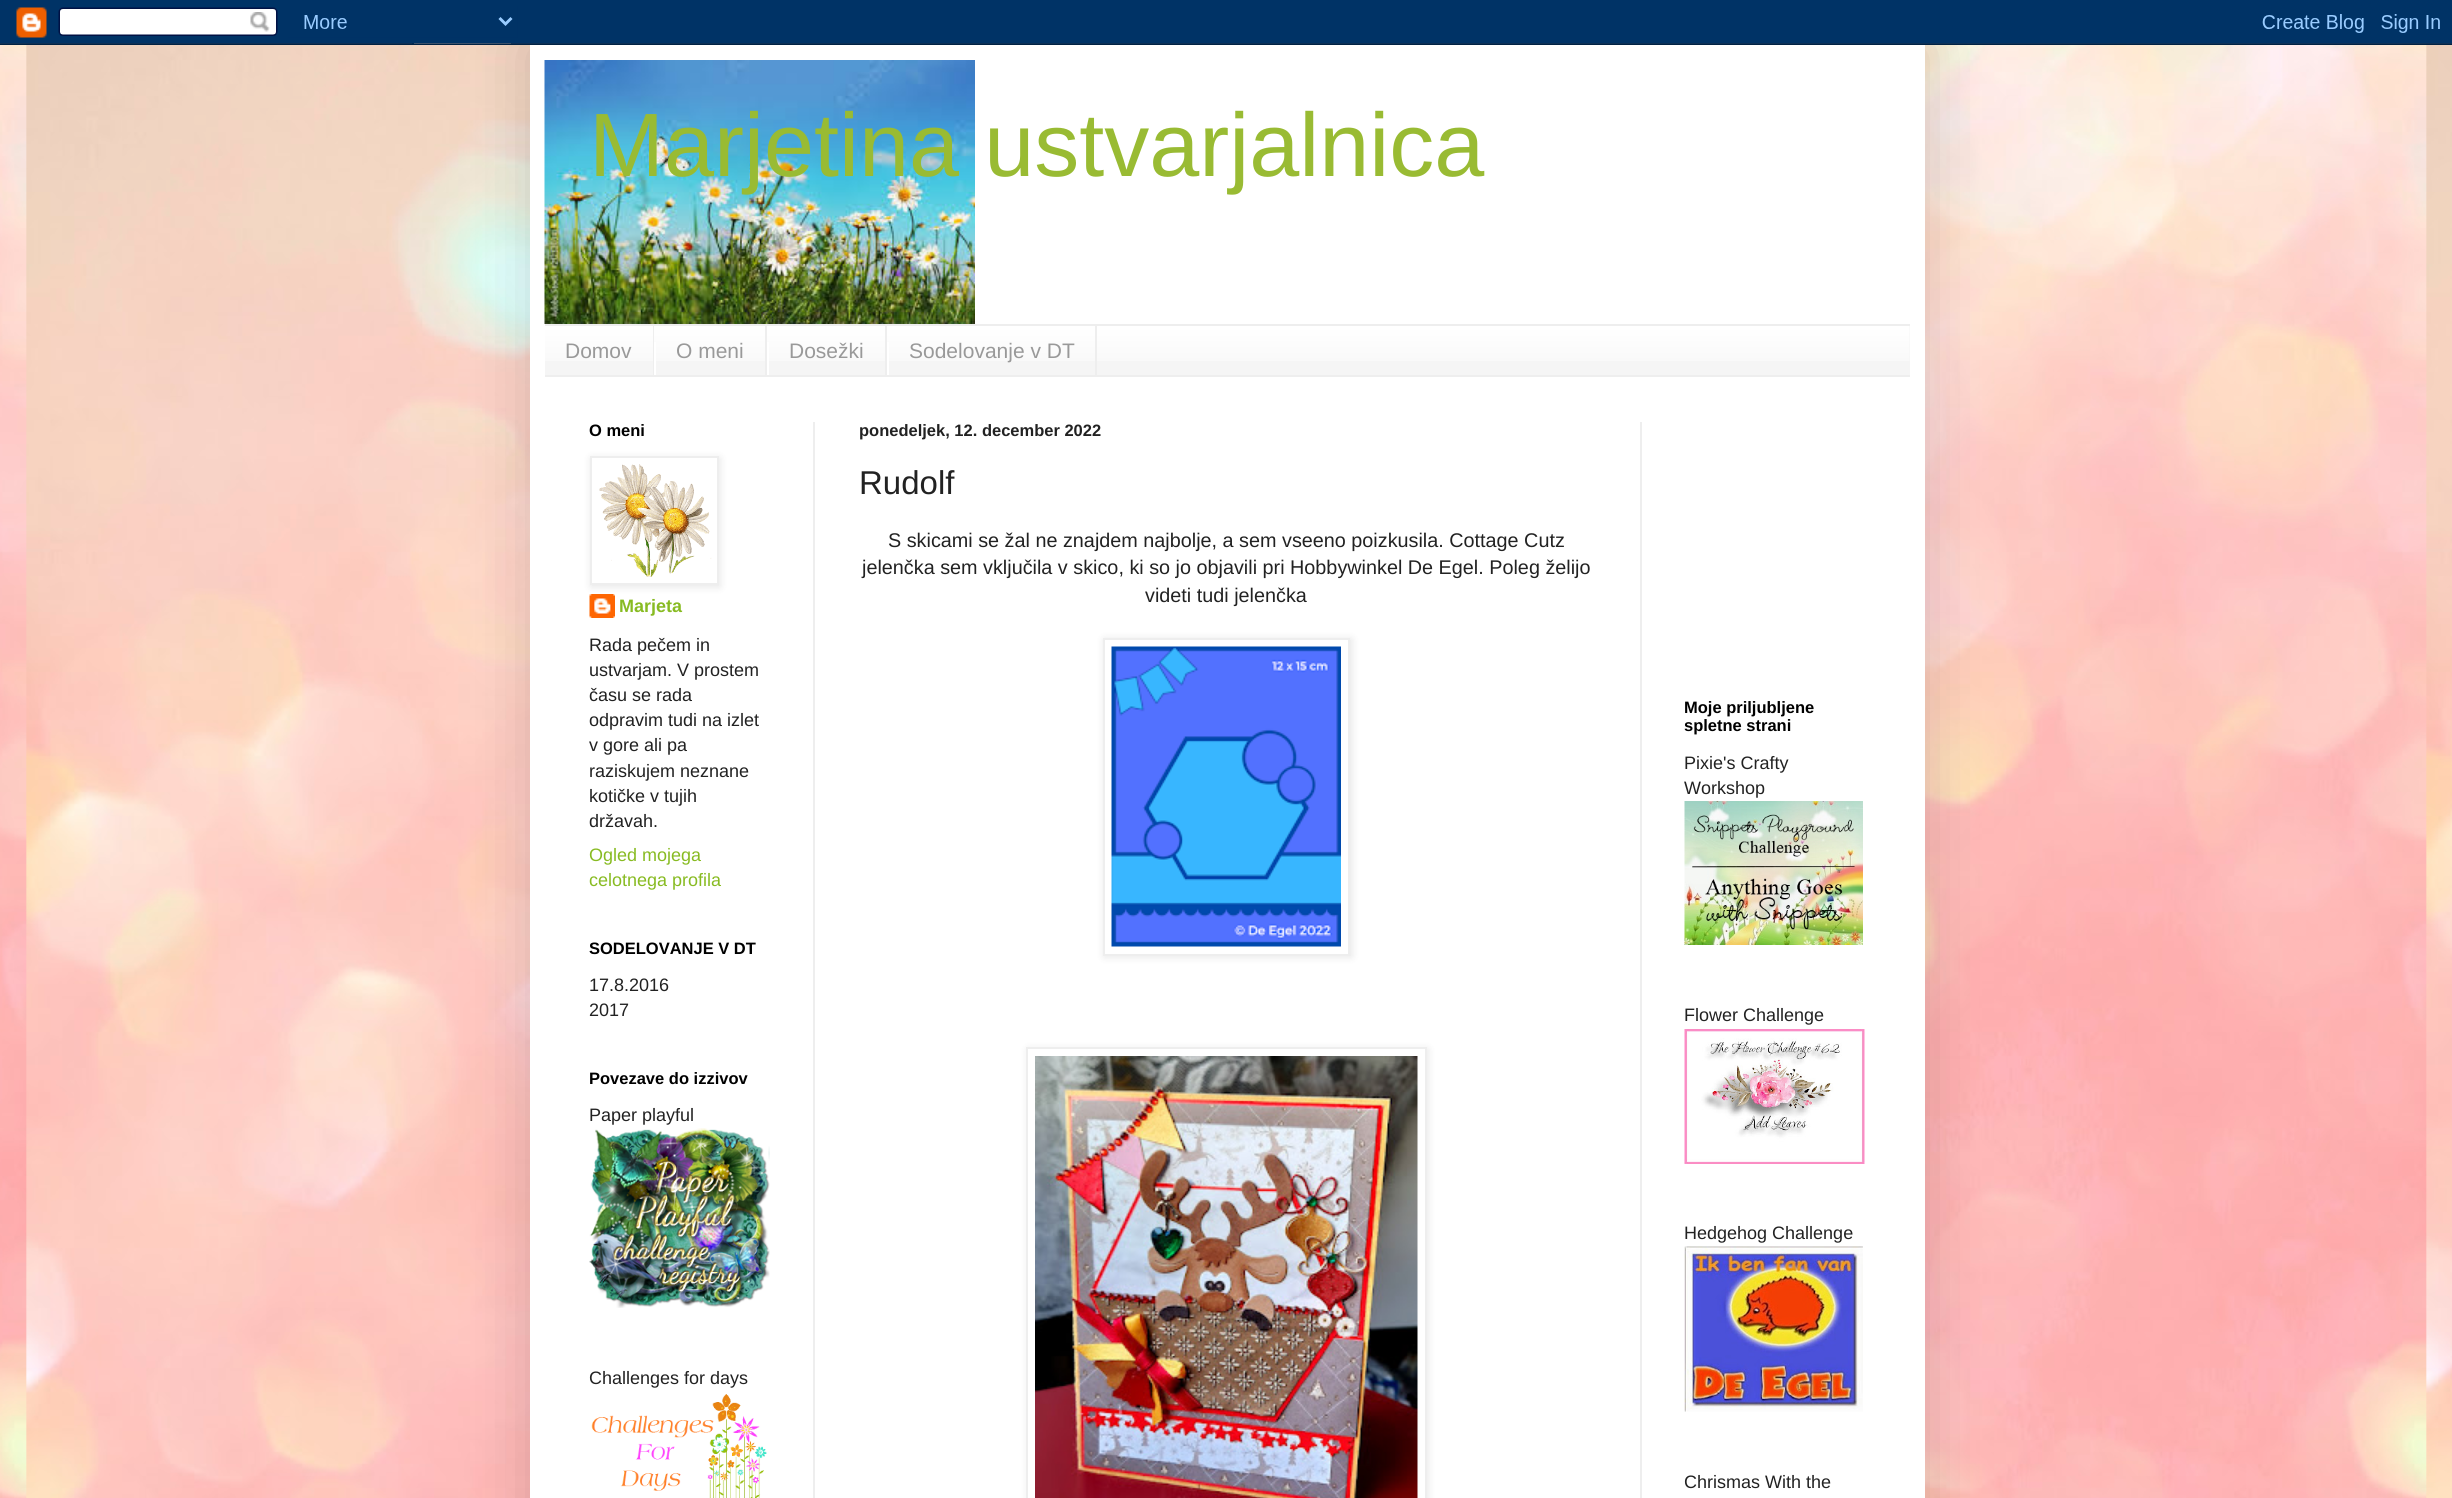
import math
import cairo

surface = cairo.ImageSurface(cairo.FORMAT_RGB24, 2452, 1498)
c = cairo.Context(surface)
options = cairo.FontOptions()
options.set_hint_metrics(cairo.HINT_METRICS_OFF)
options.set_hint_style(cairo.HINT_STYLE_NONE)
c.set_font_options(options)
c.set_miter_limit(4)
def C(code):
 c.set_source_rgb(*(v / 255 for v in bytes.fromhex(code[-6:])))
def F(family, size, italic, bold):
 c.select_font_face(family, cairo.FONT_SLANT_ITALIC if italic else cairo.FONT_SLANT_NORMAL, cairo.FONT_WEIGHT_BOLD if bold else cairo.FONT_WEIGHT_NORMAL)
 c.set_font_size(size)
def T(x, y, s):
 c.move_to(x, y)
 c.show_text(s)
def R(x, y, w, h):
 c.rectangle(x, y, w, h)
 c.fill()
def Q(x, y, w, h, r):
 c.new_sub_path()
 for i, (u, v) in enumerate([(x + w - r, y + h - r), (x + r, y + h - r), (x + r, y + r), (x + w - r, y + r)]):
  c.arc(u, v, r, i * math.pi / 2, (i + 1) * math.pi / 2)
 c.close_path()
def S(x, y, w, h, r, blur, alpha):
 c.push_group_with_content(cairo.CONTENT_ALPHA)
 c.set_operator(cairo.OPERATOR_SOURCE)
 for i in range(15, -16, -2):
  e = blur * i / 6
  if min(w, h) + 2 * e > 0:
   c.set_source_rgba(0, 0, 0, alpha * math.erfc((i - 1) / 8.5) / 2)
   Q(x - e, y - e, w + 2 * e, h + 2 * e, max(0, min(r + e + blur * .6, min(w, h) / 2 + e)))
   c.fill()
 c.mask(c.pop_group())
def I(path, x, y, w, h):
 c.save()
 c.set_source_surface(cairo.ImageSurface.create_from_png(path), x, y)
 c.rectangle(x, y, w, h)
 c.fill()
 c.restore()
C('ffffff')
c.paint()
I('1.png',0,43,2452,1455)
C('000000')
S(530,45,1395,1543,0,30,.15)
I('2.png',0,0,2452,45)
C('ffffff')
R(530,45,1395,1453)
I('3.png',544,60,431,264)
F('Liberation Sans',90,0,0)
C('99bb33')
T(589,176,'Marjetina ustvarjalnica')
C('f5f5f5')
R(545,326,1365,49)
I('4.png',545,326,1365,35)
C('eeeeee')
R(545,324,1365,2)
R(545,375,1365,2)
R(653,326,1,49)
F('Liberation Sans',21,0,0)
C('999999')
T(565,358,'Domov')
C('eeeeee')
R(765,326,2,49)
C('ffffff')
R(654,342,2,33)
C('999999')
T(676,358,'O meni')
C('eeeeee')
R(885,326,2,49)
C('ffffff')
R(767,342,2,33)
C('999999')
T(789,358,'Dosežki')
C('eeeeee')
R(1095,326,2,49)
C('ffffff')
R(887,342,2,33)
C('999999')
T(909,358,'Sodelovanje v DT')
C('eeeeee')
R(813,422,2,1076)
R(1640,422,2,1076)
F('Liberation Sans',16.5,0,1)
C('000000')
T(589,436,'O meni')
I('6.png',589,594,26,24)
C('000000')
S(591,458,129,129,0,4,.1)
C('ffffff')
c.rectangle(591,457,127,127)
c.fill_preserve()
C('eeeeee')
c.stroke()
I('5.png',599,464,113,113)
F('Liberation Sans',18,0,1)
C('88bb22')
T(619,612,'Marjeta')
F('Liberation Sans',18,0,0)
C('222222')
T(589,651,'Rada pečem in')
T(589,676,'ustvarjam. V prostem')
T(589,701,'času se rada')
T(589,726,'odpravim tudi na izlet')
T(589,751,'v gore ali pa')
T(589,777,'raziskujem neznane')
T(589,802,'kotičke v tujih')
T(589,827,'državah.')
C('88bb22')
T(589,861,'Ogled mojega')
T(589,886,'celotnega profila')
F('Liberation Sans',16.5,0,1)
C('000000')
T(589,954,'SODELOVANJE V DT')
F('Liberation Sans',18,0,0)
C('222222')
T(589,991,'17.8.2016')
T(589,1016,'2017')
F('Liberation Sans',16.5,0,1)
C('000000')
T(589,1084,'Povezave do izzivov')
F('Liberation Sans',18,0,0)
C('222222')
T(589,1121,'Paper playful')
I('7.png',589,1128,181,180)
T(589,1384,'Challenges for days')
I('8.png',591,1394,176,104)
F('Liberation Sans',16.5,0,1)
T(859,436,'ponedeljek, 12. december 2022')
F('Liberation Sans',33,0,0)
T(859,494,'Rudolf')
F('Liberation Sans',19.8,0,0)
T(888,547,'S skicami se žal ne znajdem najbolje, a sem vseeno poizkusila. Cottage Cutz')
T(862,574,'jelenčka sem vključila v skico, ki so jo objavili pri Hobbywinkel De Egel. Poleg želijo')
T(1145,602,'videti tudi jelenčka')
C('000000')
S(1104,639,248,318,0,4,.1)
C('ffffff')
c.rectangle(1104,639,245,316)
c.fill_preserve()
C('eeeeee')
c.stroke()
I('9.png',1111,646,230,301)
C('000000')
S(1028,1049,400,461,0,4,.1)
C('ffffff')
c.rectangle(1027,1048,399,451)
c.fill_preserve()
C('eeeeee')
c.stroke()
I('10.png',1035,1056,383,442)
F('Liberation Sans',16.5,0,1)
C('000000')
T(1684,713,'Moje priljubljene')
T(1684,731,'spletne strani')
F('Liberation Sans',18,0,0)
C('222222')
T(1684,769,'Pixie\'s Crafty')
T(1684,794,'Workshop')
I('11.png',1684,801,179,144)
T(1684,1021,'Flower Challenge')
I('12.png',1684,1029,181,135)
T(1684,1239,'Hedgehog Challenge')
I('13.png',1684,1246,179,166)
T(1684,1488,'Chrismas With the')
surface.write_to_png('o.png')
